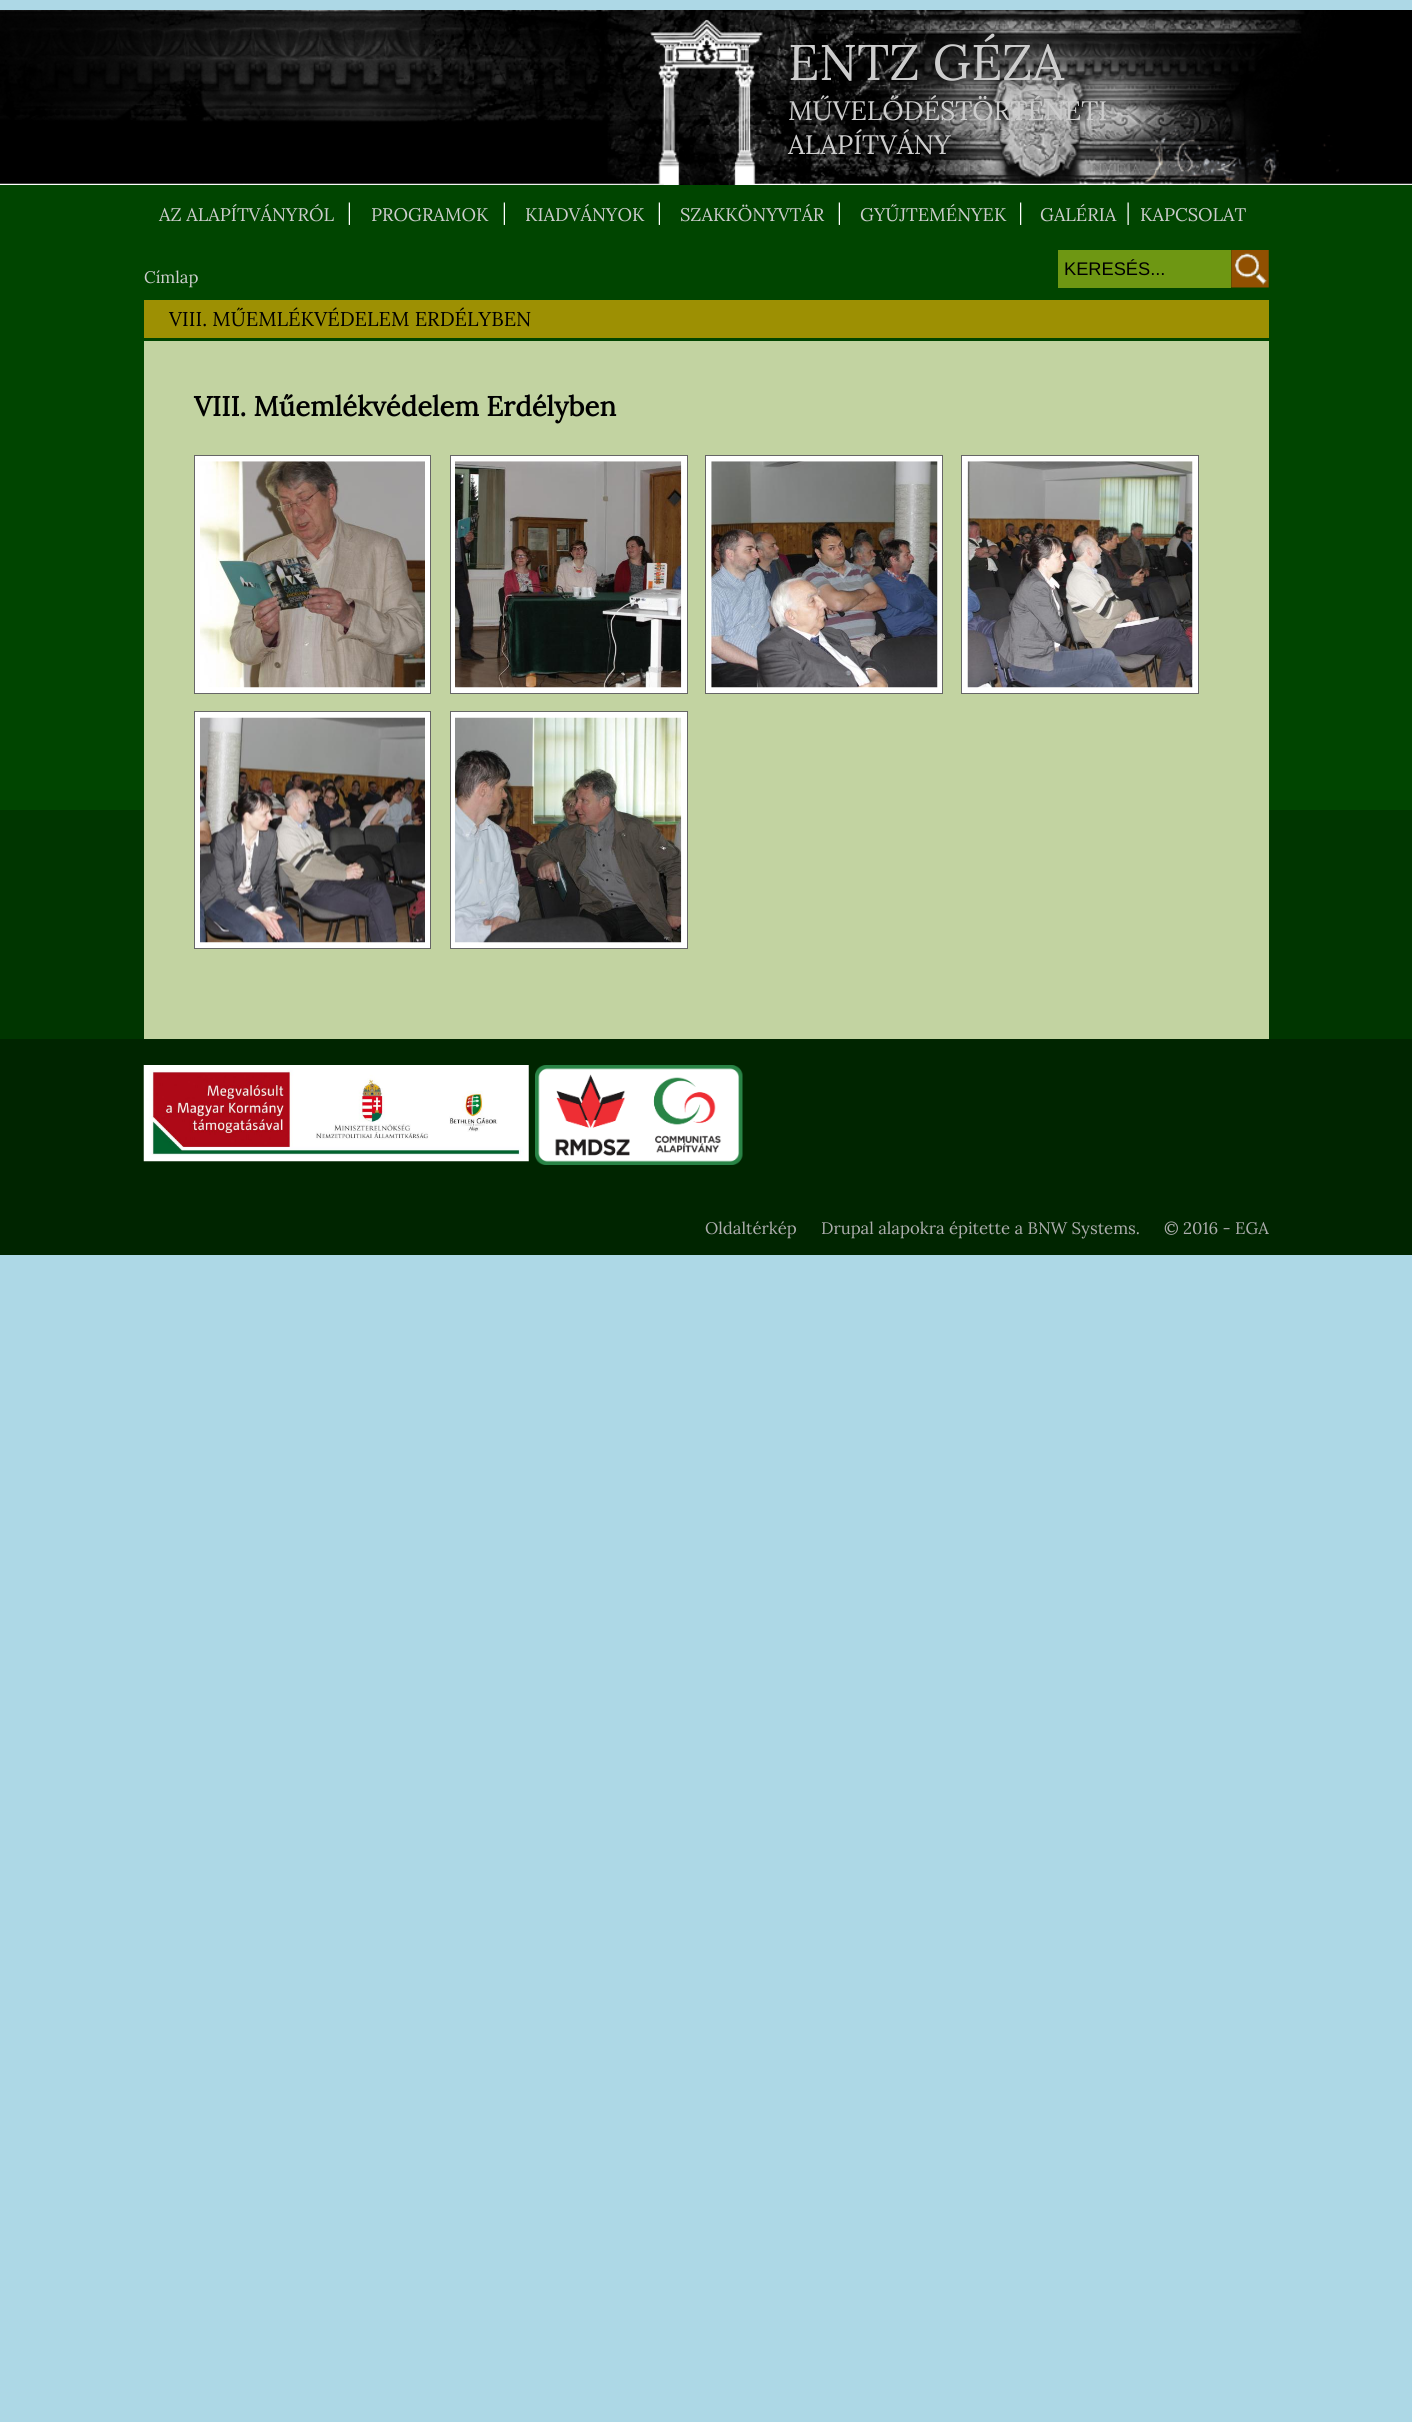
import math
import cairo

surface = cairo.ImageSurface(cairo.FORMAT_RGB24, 1412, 2422)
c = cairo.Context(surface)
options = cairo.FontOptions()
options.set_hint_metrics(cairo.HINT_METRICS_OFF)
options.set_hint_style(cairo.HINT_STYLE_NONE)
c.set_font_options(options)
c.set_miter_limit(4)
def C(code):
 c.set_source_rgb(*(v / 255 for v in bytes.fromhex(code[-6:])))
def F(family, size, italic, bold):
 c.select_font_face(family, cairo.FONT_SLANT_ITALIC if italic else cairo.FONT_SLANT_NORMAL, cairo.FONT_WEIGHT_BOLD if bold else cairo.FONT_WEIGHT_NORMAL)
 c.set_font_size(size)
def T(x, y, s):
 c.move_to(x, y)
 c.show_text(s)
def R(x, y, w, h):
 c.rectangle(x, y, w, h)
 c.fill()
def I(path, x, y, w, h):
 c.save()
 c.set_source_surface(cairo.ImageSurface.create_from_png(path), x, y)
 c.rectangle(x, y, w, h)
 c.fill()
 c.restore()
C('add8e6')
c.paint()
C('003600')
R(0,810,1412,229)
I('1.png',0,10,1412,175)
F('Lora',50,0,0)
C('cdcdcd')
T(788,80,'ENTZ GÉZA')
F('Lora',26.75,0,0)
T(788,120,'MŰVELŐDÉSTÖRTÉNETI')
T(788,154,'ALAPÍTVÁNY')
C('004500')
R(0,185,1412,625)
I('2.png',348,202,2,23)
F('Lora',18.25,0,0)
C('cdcdcd')
T(159,221,'AZ ALAPÍTVÁNYRÓL')
I('2.png',503,202,2,23)
T(371,221,'PROGRAMOK')
I('2.png',658,202,2,23)
T(525,221,'KIADVÁNYOK')
I('2.png',838,202,2,23)
T(680,221,'SZAKKÖNYVTÁR')
I('3.png',1020,202,2,23)
T(860,221,'GYŰJTEMÉNYEK')
I('4.png',1127,202,2,23)
T(1040,221,'GALÉRIA')
T(1140,221,'KAPCSOLAT')
C('6e9713')
R(1058,250,173,38)
F('Liberation Sans',18.25,0,0)
C('000000')
T(1064,275,'KERESÉS...')
I('5.png',1231,250,38,38)
F('Lora',16.7,0,0)
C('cdcdcd')
T(144,283,'Címlap')
C('9d9003')
R(144,300,1125,38)
F('Lora',20,0,0)
C('000000')
T(169,326,'VIII. MŰEMLÉKVÉDELEM ERDÉLYBEN')
C('c2d3a1')
R(144,341,1125,698)
F('Lora',27.5,0,1)
C('000000')
T(194,416,'VIII. Műemlékvédelem Erdélyben')
C('ffffff')
c.rectangle(194.5,455.5,236,238)
c.fill_preserve()
C('666666')
c.set_line_width(1)
c.stroke()
I('6.png',200,461,225,227)
C('ffffff')
c.rectangle(450.5,455.5,237,238)
c.fill_preserve()
C('666666')
c.stroke()
I('7.png',455,461,227,227)
C('ffffff')
c.rectangle(705.5,455.5,237,238)
c.fill_preserve()
C('666666')
c.stroke()
I('8.png',711,461,227,227)
C('ffffff')
c.rectangle(961.5,455.5,237,238)
c.fill_preserve()
C('666666')
c.stroke()
I('9.png',967,461,226,227)
C('ffffff')
c.rectangle(194.5,711.5,236,237)
c.fill_preserve()
C('666666')
c.stroke()
I('10.png',200,717,225,226)
C('ffffff')
c.rectangle(450.5,711.5,237,237)
c.fill_preserve()
C('666666')
c.stroke()
I('11.png',455,717,227,226)
C('002500')
R(0,1039,1412,216)
I('12.png',143,1065,386,97)
I('13.png',535,1065,208,100)
F('Lora',16.7,0,0)
C('adadad')
T(705,1234,'Oldaltérkép')
T(821,1234,'Drupal alapokra épitette a BNW Systems.')
T(1164,1234,'© 2016 - EGA')
surface.write_to_png('o.png')
